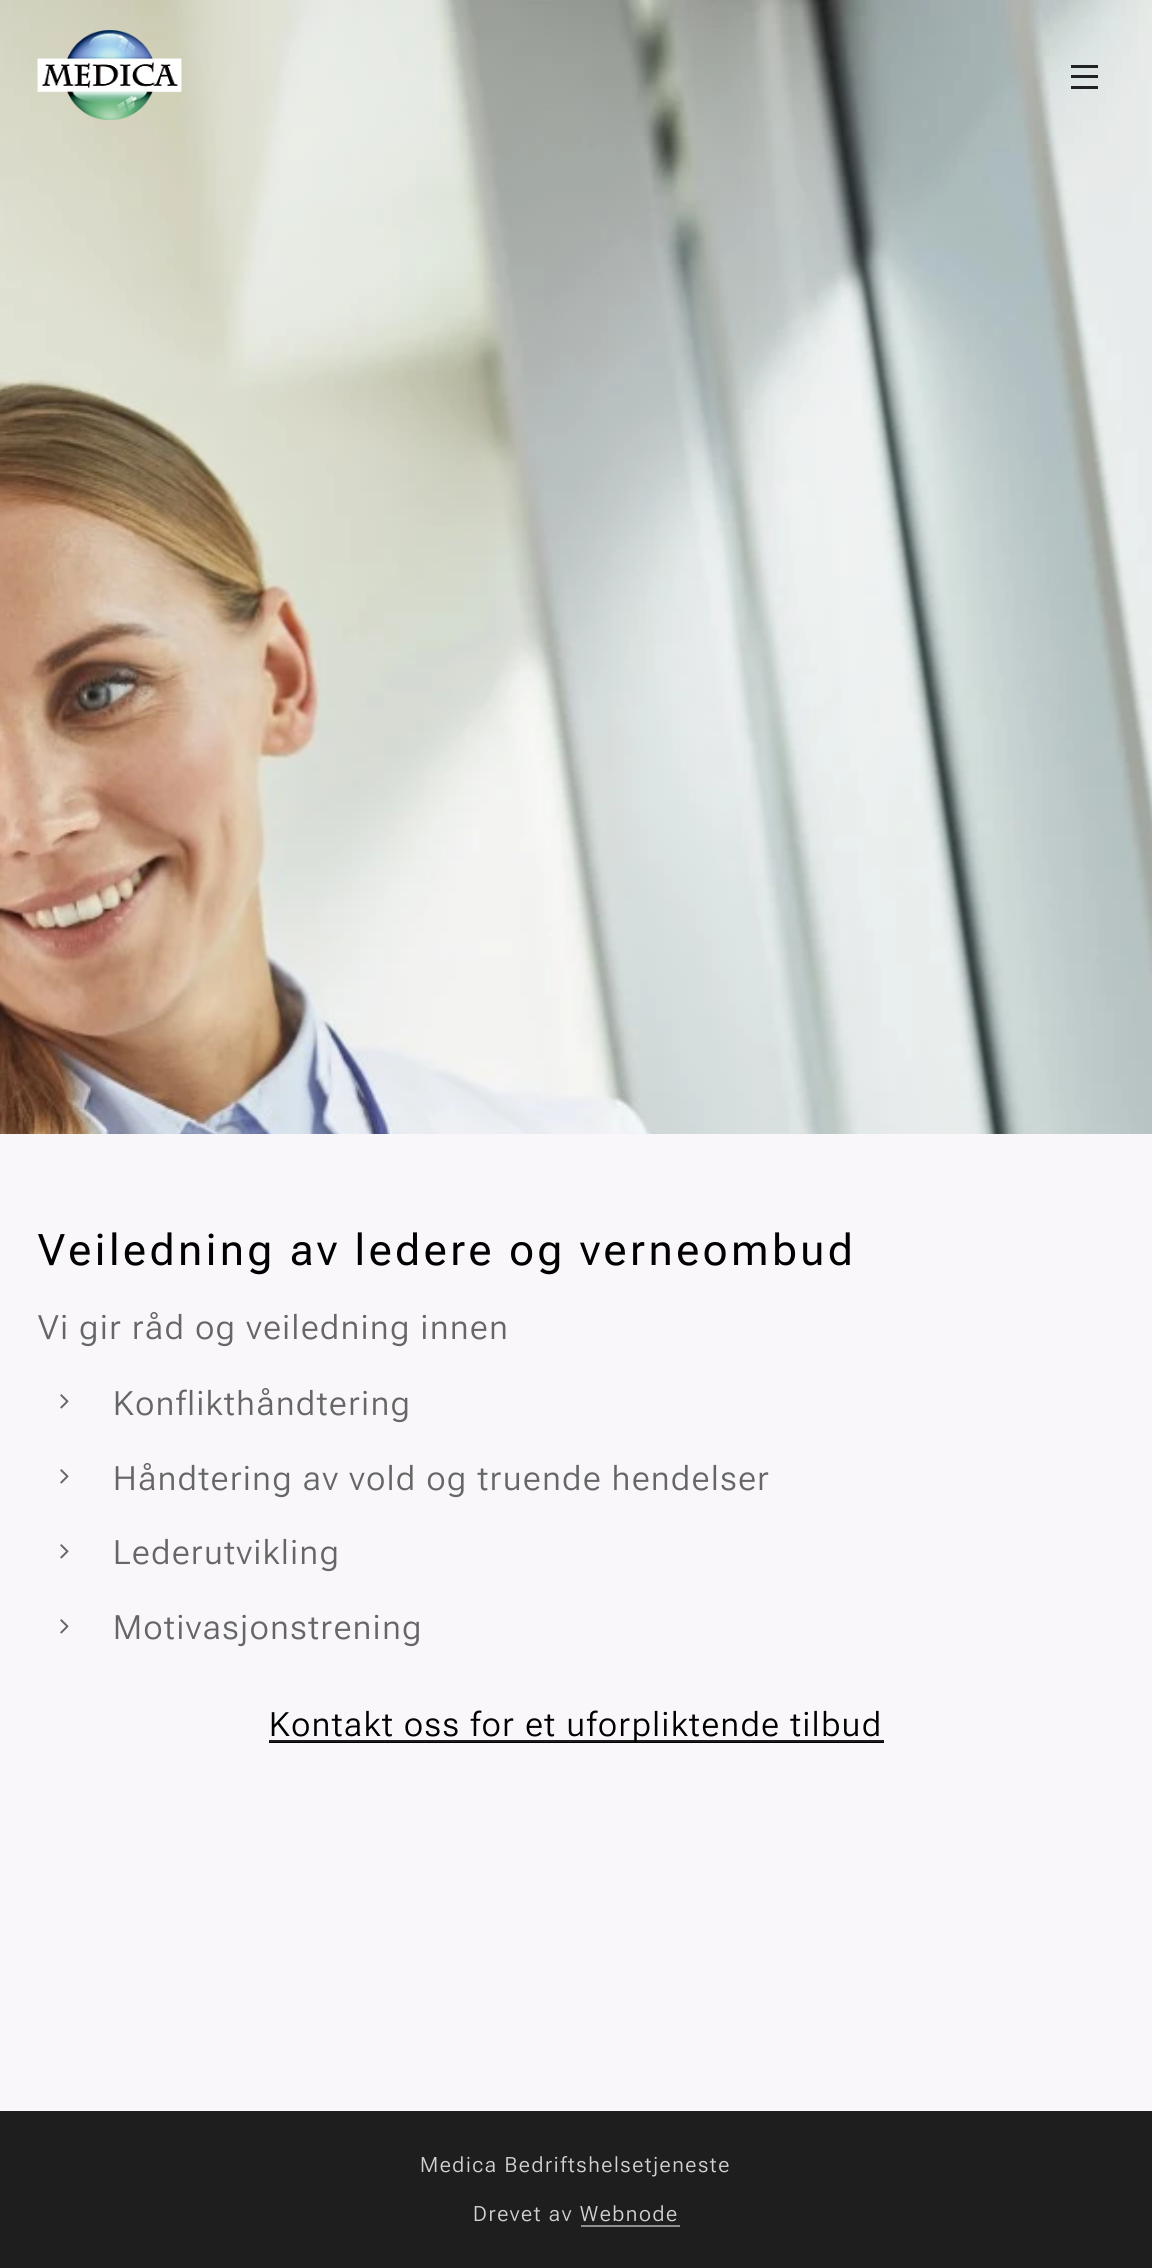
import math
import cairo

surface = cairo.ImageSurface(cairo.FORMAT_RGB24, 1152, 2268)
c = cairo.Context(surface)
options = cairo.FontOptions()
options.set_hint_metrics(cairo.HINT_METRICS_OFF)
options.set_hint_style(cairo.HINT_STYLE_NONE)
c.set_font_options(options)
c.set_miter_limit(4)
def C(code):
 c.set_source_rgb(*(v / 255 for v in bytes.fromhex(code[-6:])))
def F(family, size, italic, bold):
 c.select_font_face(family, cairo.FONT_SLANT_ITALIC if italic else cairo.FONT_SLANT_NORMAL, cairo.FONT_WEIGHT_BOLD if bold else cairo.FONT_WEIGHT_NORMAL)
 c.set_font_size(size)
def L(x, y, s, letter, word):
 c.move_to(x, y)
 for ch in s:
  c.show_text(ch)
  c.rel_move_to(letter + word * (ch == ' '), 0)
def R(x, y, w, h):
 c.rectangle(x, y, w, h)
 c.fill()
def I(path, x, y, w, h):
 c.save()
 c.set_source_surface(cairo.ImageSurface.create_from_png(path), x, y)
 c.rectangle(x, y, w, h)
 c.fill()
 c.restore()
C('1f1e1e')
c.paint()
I('2.png',0,0,1152,1134)
I('1.png',37,30,145,90)
c.set_source_rgba(0,0,0,0.85)
R(1071,75,27,3)
R(1071,65,27,3)
R(1071,86,27,3)
C('f9f7fa')
R(0,1134,1152,977)
F('Roboto Flex',43.5,0,0)
C('000000')
L(38,1265,'Veiledning av ledere og verneombud',3.5,0)
F('Roboto Flex Light',33.5,0,0)
C('666666')
L(38,1339,'Vi gir råd og veiledning innen',1.6,0)
I('3.png',60,1394,9,15)
L(113,1415,'Konflikthåndtering',1.6,0)
I('3.png',60,1469,9,15)
L(113,1490,'Håndtering av vold og truende hendelser',1.6,0)
I('3.png',60,1544,9,15)
L(113,1564,'Lederutvikling',1.6,0)
I('3.png',60,1619,9,15)
L(113,1639,'Motivasjonstrening',1.6,0)
C('000000')
R(269,1742,615,1)
C('1d1d1d')
R(269,1740,615,2)
C('000000')
L(269,1736,'Kontakt oss for et uforpliktende tilbud',1.6,0)
F('Roboto Flex Light',21,0,0)
C('d2d2d2')
L(420,2172,'Medica Bedriftshelsetjeneste',1.6,0)
L(473,2221,'Drevet av Webnode',1.6,0)
C('8f8f8f')
R(581,2225,99,2)
surface.write_to_png('o.png')
